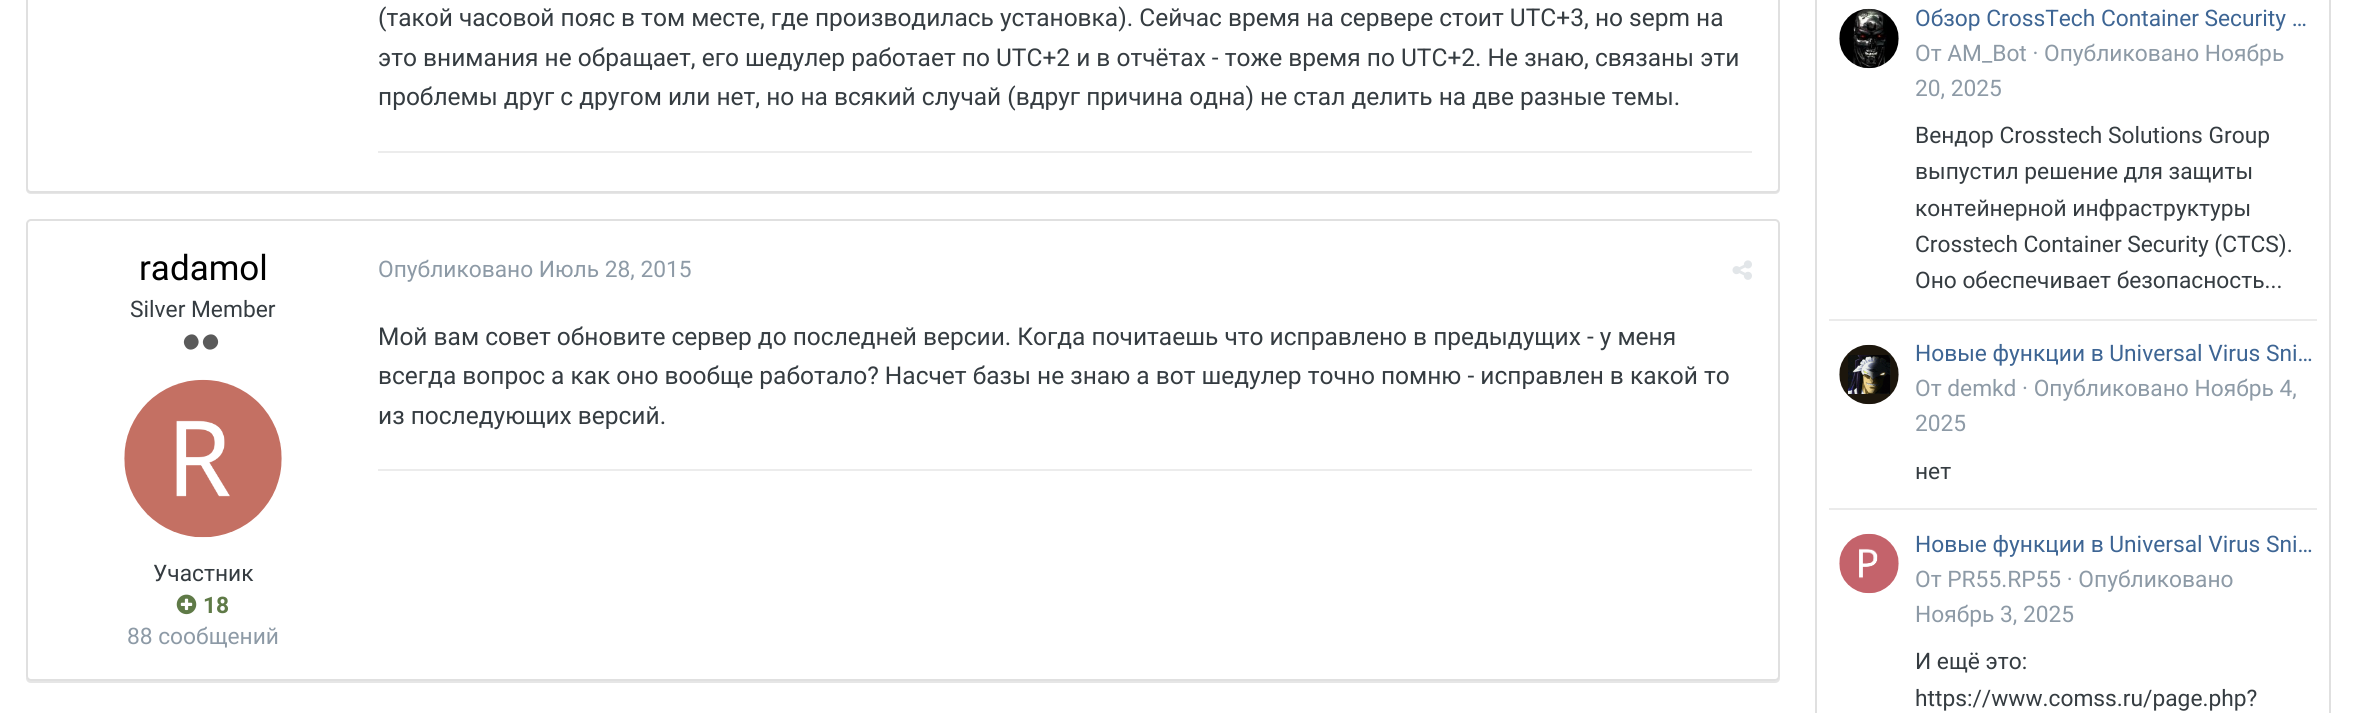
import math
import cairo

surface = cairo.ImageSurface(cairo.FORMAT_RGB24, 2356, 713)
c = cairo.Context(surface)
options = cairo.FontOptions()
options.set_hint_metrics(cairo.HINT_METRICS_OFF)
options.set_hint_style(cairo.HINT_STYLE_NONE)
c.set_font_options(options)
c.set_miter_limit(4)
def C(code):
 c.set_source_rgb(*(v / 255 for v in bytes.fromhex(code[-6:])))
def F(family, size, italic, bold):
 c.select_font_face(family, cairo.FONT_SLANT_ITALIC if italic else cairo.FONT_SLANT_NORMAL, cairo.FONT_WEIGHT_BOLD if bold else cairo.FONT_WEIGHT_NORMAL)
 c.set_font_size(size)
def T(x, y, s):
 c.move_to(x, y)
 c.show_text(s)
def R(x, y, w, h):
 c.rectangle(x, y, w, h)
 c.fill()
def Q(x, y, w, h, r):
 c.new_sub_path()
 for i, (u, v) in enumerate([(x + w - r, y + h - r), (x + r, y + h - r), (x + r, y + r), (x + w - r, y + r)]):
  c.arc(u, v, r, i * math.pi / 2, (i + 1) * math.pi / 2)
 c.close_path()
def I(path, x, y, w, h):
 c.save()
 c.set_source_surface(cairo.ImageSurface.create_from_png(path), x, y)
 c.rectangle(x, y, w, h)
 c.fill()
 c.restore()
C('ffffff')
c.paint()
C('e6e6e6')
c.new_path()
c.move_to(26,-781)
c.line_to(26,189)
c.curve_to(26,192,28,194,31,194)
c.line_to(1775,194)
c.curve_to(1778,194,1780,192,1780,189)
c.line_to(1780,-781)
c.line_to(1780,187)
c.curve_to(1780,190,1777,192,1774,192)
c.line_to(32,192)
c.curve_to(29,192,26,190,26,187)
c.close_path()
c.fill()
C('ffffff')
Q(27,-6,1752,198,4)
c.fill_preserve()
C('e0e0e0')
c.stroke()
F('Roboto',24.5,0,0)
C('353c41')
T(378,26,'(такой часовой пояс в том месте, где производилась установка). Сейчас время на сервере стоит UTC+3, но sepm на')
T(378,66,'это внимания не обращает, его шедулер работает по UTC+2 и в отчётах - тоже время по UTC+2. Не знаю, связаны эти')
T(378,105,'проблемы друг с другом или нет, но на всякий случай (вдруг причина одна) не стал делить на две разные темы.')
C('ececec')
R(378,151,1374,2)
C('e6e6e6')
c.new_path()
c.move_to(26,224)
c.line_to(26,678)
c.curve_to(26,681,28,683,31,683)
c.line_to(1775,683)
c.curve_to(1778,683,1780,681,1780,678)
c.line_to(1780,224)
c.line_to(1780,676)
c.curve_to(1780,678,1777,681,1774,681)
c.line_to(32,681)
c.curve_to(29,681,26,678,26,676)
c.close_path()
c.fill()
C('ffffff')
Q(27,220,1752,460,4)
c.fill_preserve()
C('e0e0e0')
c.stroke()
F('Roboto',35,0,0)
C('000000')
T(139,280,'radamol')
F('Roboto',22.75,0,0)
C('353c41')
T(130,317,'Silver Member')
C('5a5a5a')
c.new_path()
c.move_to(197.5,338)
c.curve_to(202.5,346.5,189.5,354.5,185,346)
c.curve_to(180,337.5,193,329.5,197.5,338)
c.close_path()
c.move_to(217,338)
c.curve_to(222,346.5,209,354.5,204,346)
c.curve_to(199,337.5,212,329.5,217,338)
c.close_path()
c.fill()
I('1.png',124,379,158,159)
C('353c41')
T(153,581,'Участник')
I('2.png',176,594,21,21)
F('Roboto',22.75,0,1)
C('5f7a47')
T(203,613,'18')
F('Roboto',22.75,0,0)
C('8d9aa6')
T(127,644,'88 сообщений')
T(378,277,'Опубликовано Июль 28, 2015')
I('3.png',1732,260,20,20)
F('Roboto',24.5,0,0)
C('353c41')
T(378,345,'Мой вам совет обновите сервер до последней версии. Когда почитаешь что исправлено в предыдущих - у меня')
T(378,384,'всегда вопрос а как оно вообще работало? Насчет базы не знаю а вот шедулер точно помню - исправлен в какой то')
T(378,424,'из последующих версий.')
C('ececec')
R(378,469,1374,2)
c.rectangle(1816,-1,514,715)
C('e0e0e0')
c.stroke()
C('ebebeb')
R(1829,319,488,2)
I('4.png',1839,8,60,61)
F('Roboto',22.75,0,0)
C('3d6594')
T(1915,26,'Обзор CrossTech Container Security …')
C('8d9aa6')
T(1915,61,'От AM_Bot · Опубликовано Ноябрь')
T(1915,96,'20, 2025')
C('353c41')
T(1915,143,'Вендор Crosstech Solutions Group')
T(1915,179,'выпустил решение для защиты')
T(1915,216,'контейнерной инфраструктуры')
T(1915,252,'Crosstech Container Security (CTCS).')
T(1915,288,'Оно обеспечивает безопасность...')
C('ebebeb')
R(1829,508,488,2)
I('5.png',1839,344,60,61)
C('3d6594')
T(1915,361,'Новые функции в Universal Virus Sni…')
C('8d9aa6')
T(1915,396,'От demkd · Опубликовано Ноябрь 4,')
T(1915,431,'2025')
C('353c41')
T(1915,479,'нет')
I('6.png',1839,533,60,61)
C('3d6594')
T(1915,552,'Новые функции в Universal Virus Sni…')
C('8d9aa6')
T(1915,587,'От PR55.RP55 · Опубликовано')
T(1915,622,'Ноябрь 3, 2025')
C('353c41')
T(1915,669,'И ещё это:')
T(1915,706,'https://www.comss.ru/page.php?')
surface.write_to_png('o.png')
